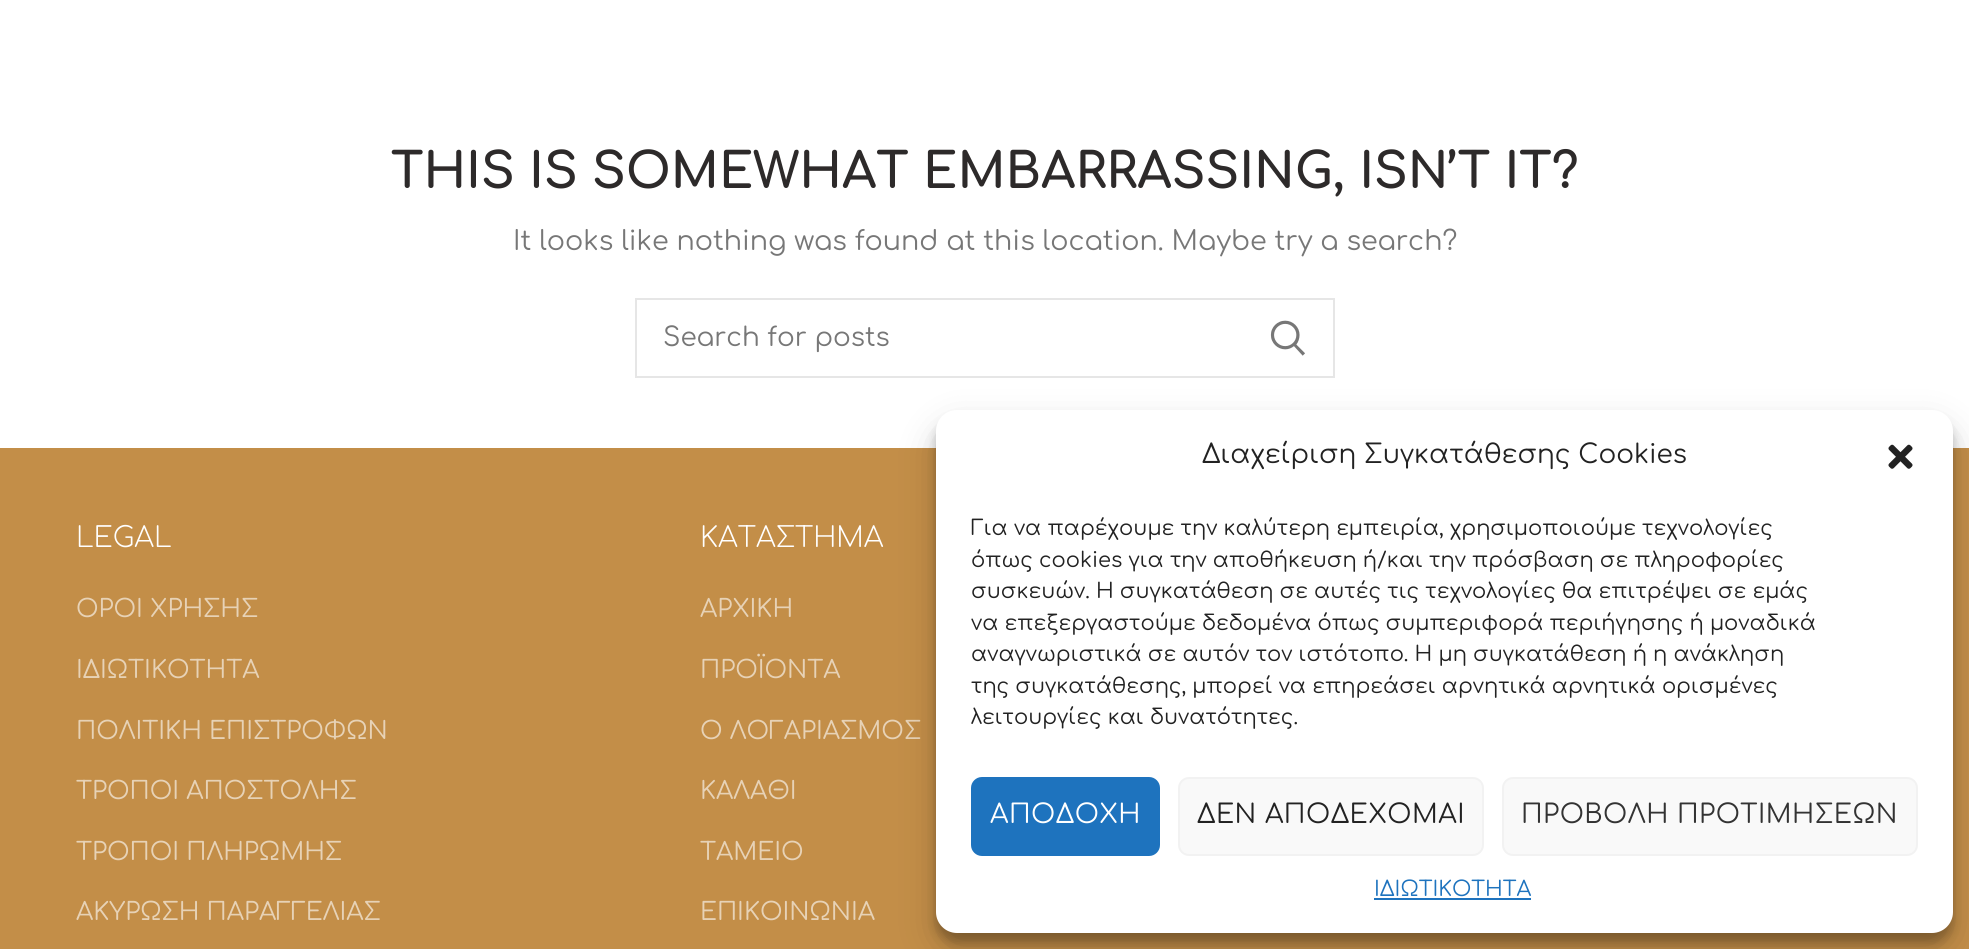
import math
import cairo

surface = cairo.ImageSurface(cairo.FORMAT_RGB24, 1969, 949)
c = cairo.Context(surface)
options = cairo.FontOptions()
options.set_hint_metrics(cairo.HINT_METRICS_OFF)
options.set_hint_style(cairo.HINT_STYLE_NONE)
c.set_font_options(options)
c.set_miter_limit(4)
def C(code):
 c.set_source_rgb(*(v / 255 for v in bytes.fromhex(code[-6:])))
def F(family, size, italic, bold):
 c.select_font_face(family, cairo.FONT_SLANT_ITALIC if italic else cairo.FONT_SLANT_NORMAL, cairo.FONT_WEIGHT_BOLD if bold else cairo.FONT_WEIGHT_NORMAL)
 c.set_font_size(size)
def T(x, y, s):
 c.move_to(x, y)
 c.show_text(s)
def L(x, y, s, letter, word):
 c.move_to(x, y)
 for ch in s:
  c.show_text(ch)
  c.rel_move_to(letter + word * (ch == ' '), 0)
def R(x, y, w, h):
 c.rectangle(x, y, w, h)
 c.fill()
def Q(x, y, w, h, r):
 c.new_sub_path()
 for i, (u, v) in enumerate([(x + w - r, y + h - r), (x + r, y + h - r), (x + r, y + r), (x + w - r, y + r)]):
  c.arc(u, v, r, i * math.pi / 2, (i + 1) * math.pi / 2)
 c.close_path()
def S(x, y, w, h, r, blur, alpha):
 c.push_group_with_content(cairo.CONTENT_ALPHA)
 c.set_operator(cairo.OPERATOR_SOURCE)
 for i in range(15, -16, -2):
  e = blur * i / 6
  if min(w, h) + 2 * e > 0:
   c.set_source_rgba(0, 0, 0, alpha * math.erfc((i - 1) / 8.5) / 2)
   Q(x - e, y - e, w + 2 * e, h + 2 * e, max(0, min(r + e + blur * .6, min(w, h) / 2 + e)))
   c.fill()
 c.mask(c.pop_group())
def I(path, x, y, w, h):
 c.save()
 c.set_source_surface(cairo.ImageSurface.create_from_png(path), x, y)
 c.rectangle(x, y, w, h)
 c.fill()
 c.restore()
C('ffffff')
c.paint()
F('Comfortaa',49,0,1)
C('2d2a2a')
T(391,188,'THIS IS SOMEWHAT EMBARRASSING, ISN’T IT?')
F('Comfortaa',26.95,0,0)
C('777777')
T(513,250,'It looks like nothing was found at this location. Maybe try a search?')
c.rectangle(636,299,698,78)
C('e6e6e6')
c.stroke()
F('Comfortaa',26.25,0,0)
C('777777')
T(663,346,'Search for posts')
I('1.png',1270,320,35,36)
C('c38e48')
R(0,448,1969,501)
F('Comfortaa Light',28,0,0)
C('ffffff')
T(76,547,'LEGAL')
F('Comfortaa',24.5,0,0)
C('e7d2b6')
T(76,617,'ΟΡΟΙ ΧΡΗΣΗΣ')
T(76,678,'ΙΔΙΩΤΙΚΟΤΗΤΑ')
T(76,739,'ΠΟΛΙΤΙΚΗ ΕΠΙΣΤΡΟΦΩΝ')
T(76,799,'ΤΡΟΠΟΙ ΑΠΟΣΤΟΛΗΣ')
T(76,860,'ΤΡΟΠΟΙ ΠΛΗΡΩΜΗΣ')
T(76,920,'ΑΚΥΡΩΣΗ ΠΑΡΑΓΓΕΛΙΑΣ')
F('Comfortaa Light',28,0,0)
C('ffffff')
T(700,547,'ΚΑΤΑΣΤΗΜΑ')
F('Comfortaa',24.5,0,0)
C('e7d2b6')
T(700,617,'ΑΡΧΙΚΗ')
T(700,678,'ΠΡΟΪΟΝΤΑ')
T(700,739,'Ο ΛΟΓΑΡΙΑΣΜΟΣ')
T(700,799,'ΚΑΛΑΘΙ')
T(700,860,'ΤΑΜΕΙΟ')
T(700,920,'ΕΠΙΚΟΙΝΩΝΙΑ')
C('000000')
S(936,420,1017,523,21,5,.23)
S(936,427,1017,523,21,17.5,.19)
C('ffffff')
Q(936,410,1017,523,21)
c.fill()
F('Comfortaa',26.25,0,0)
C('222222')
T(1202,463,'Διαχείριση Συγκατάθεσης Cookies')
I('2.png',1888,444,25,25)
F('Comfortaa',21,0,0)
T(971,535,'Για να παρέχουμε την καλύτερη εμπειρία, χρησιμοποιούμε τεχνολογίες')
T(971,567,'όπως cookies για την αποθήκευση ή/και την πρόσβαση σε πληροφορίες')
T(971,598,'συσκευών. Η συγκατάθεση σε αυτές τις τεχνολογίες θα επιτρέψει σε εμάς')
T(971,630,'να επεξεργαστούμε δεδομένα όπως συμπεριφορά περιήγησης ή μοναδικά')
T(971,661,'αναγνωριστικά σε αυτόν τον ιστότοπο. Η μη συγκατάθεση ή η ανάκληση')
T(971,693,'της συγκατάθεσης, μπορεί να επηρεάσει αρνητικά αρνητικά ορισμένες')
T(971,724,'λειτουργίες και δυνατότητες.')
C('1e73be')
Q(972,778,187,77,10)
c.fill_preserve()
c.stroke()
F('Comfortaa',26.25,0,0)
C('ffffff')
L(990,823,'ΑΠΟΔΟΧΗ',.5,0)
C('f9f9f9')
Q(1179,778,304,77,10)
c.fill_preserve()
C('f2f2f2')
c.stroke()
C('222222')
L(1197,823,'ΔΕΝ ΑΠΟΔΕΧΟΜΑΙ',.5,0)
C('f9f9f9')
Q(1503,778,414,77,10)
c.fill_preserve()
C('f2f2f2')
c.stroke()
C('333333')
L(1521,823,'ΠΡΟΒΟΛΗ ΠΡΟΤΙΜΗΣΕΩΝ',.5,0)
F('Comfortaa',21,0,0)
C('1e73be')
T(1374,896,'ΙΔΙΩΤΙΚΟΤΗΤΑ')
R(1374,898,157,2)
surface.write_to_png('o.png')
